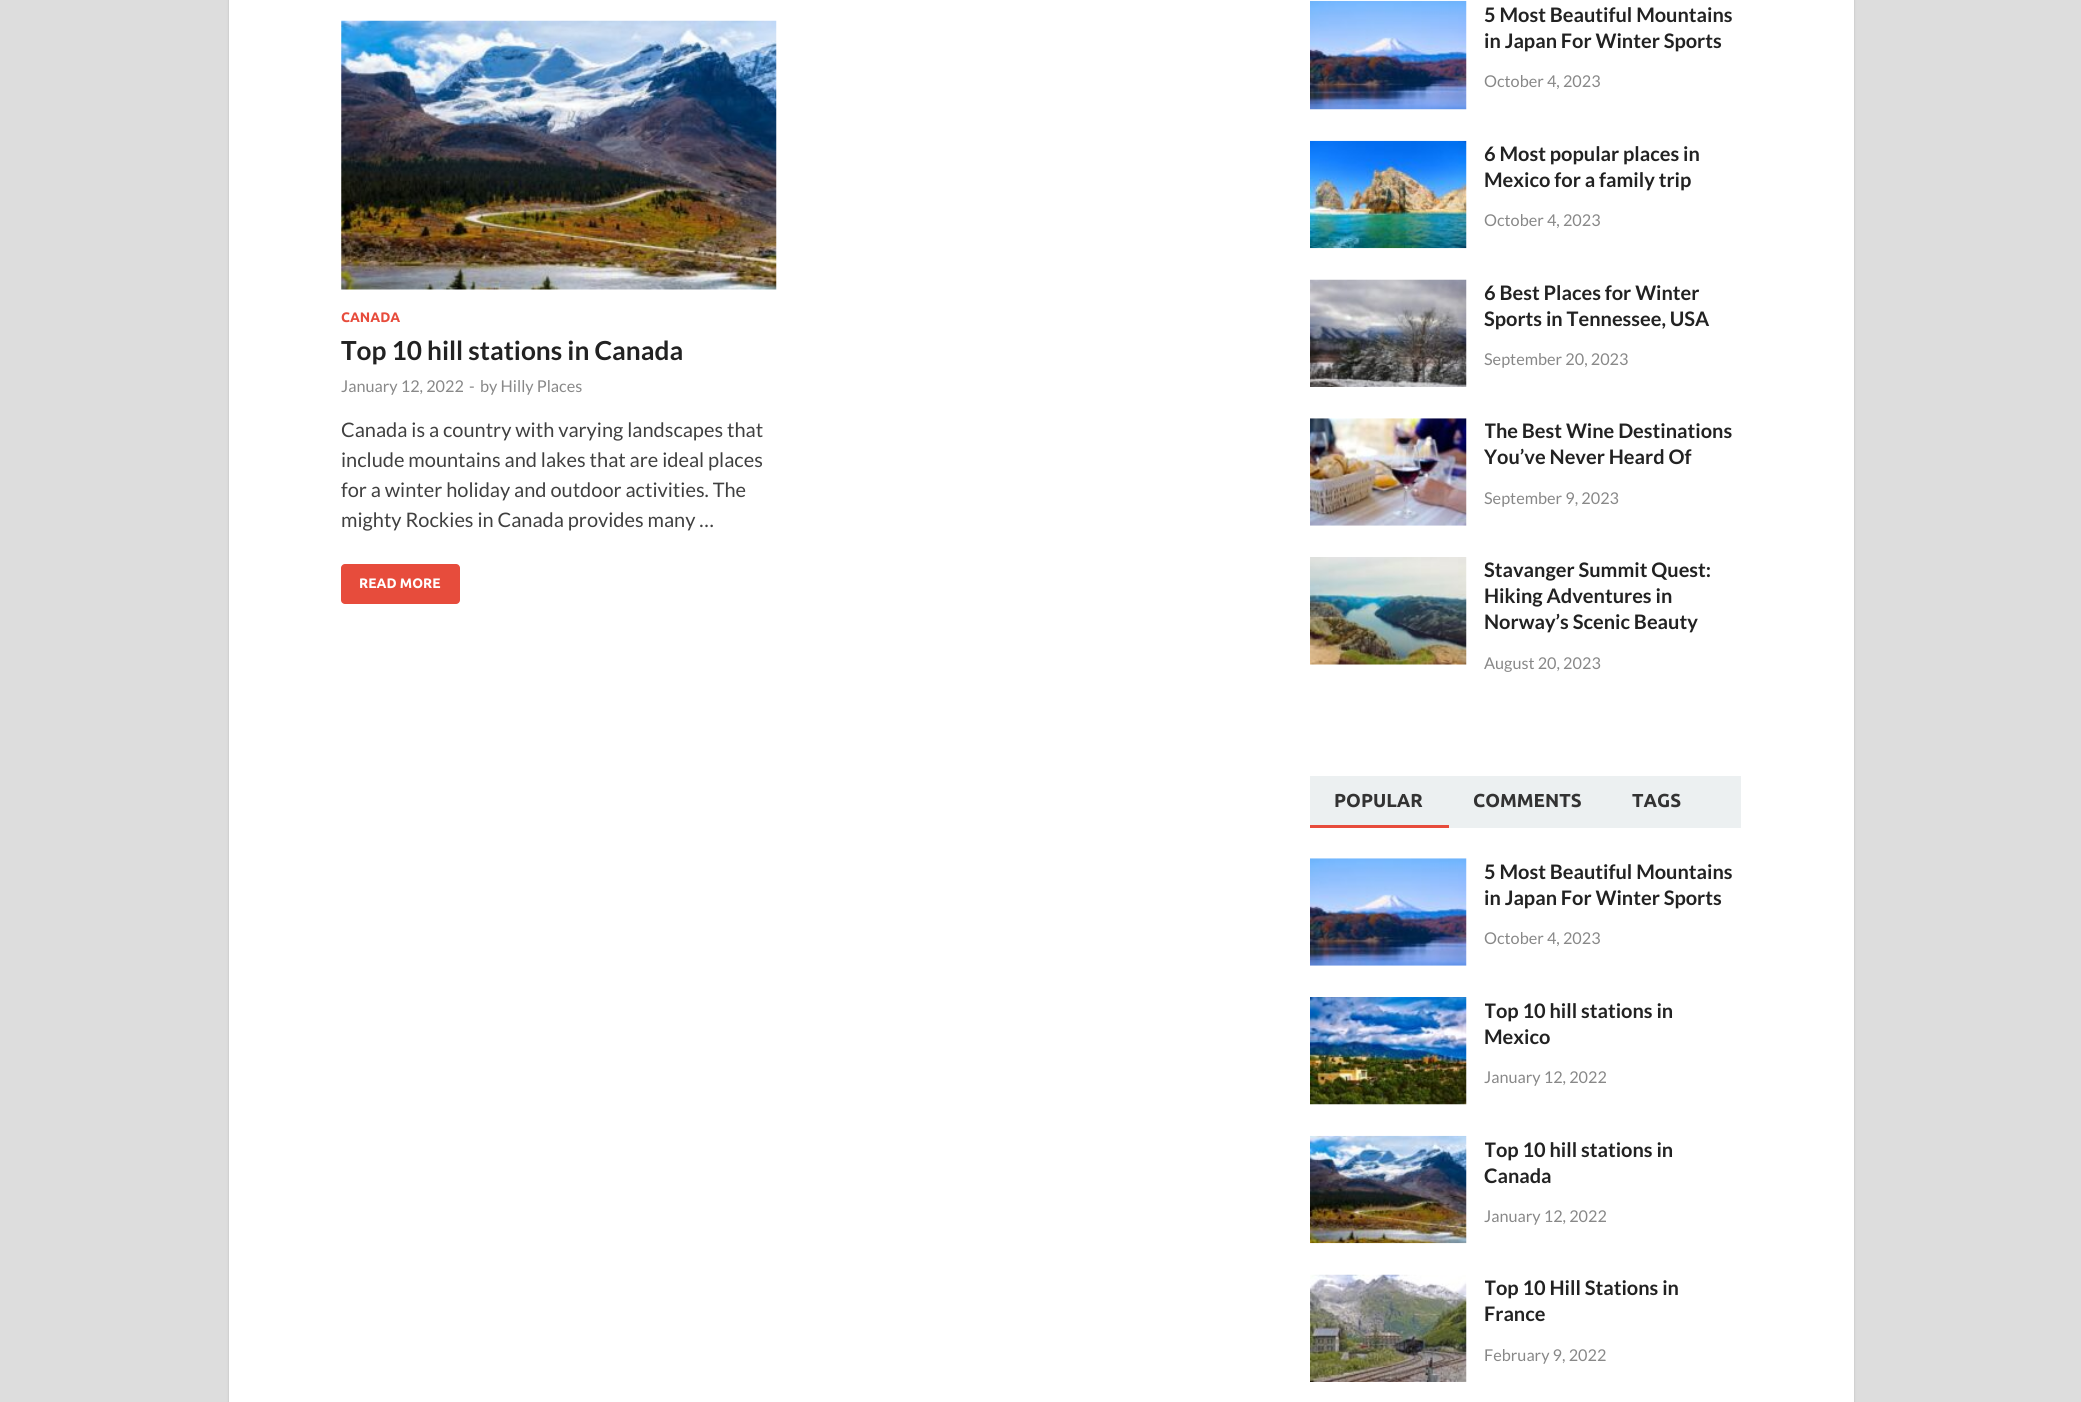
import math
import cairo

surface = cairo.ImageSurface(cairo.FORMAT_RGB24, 2081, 1402)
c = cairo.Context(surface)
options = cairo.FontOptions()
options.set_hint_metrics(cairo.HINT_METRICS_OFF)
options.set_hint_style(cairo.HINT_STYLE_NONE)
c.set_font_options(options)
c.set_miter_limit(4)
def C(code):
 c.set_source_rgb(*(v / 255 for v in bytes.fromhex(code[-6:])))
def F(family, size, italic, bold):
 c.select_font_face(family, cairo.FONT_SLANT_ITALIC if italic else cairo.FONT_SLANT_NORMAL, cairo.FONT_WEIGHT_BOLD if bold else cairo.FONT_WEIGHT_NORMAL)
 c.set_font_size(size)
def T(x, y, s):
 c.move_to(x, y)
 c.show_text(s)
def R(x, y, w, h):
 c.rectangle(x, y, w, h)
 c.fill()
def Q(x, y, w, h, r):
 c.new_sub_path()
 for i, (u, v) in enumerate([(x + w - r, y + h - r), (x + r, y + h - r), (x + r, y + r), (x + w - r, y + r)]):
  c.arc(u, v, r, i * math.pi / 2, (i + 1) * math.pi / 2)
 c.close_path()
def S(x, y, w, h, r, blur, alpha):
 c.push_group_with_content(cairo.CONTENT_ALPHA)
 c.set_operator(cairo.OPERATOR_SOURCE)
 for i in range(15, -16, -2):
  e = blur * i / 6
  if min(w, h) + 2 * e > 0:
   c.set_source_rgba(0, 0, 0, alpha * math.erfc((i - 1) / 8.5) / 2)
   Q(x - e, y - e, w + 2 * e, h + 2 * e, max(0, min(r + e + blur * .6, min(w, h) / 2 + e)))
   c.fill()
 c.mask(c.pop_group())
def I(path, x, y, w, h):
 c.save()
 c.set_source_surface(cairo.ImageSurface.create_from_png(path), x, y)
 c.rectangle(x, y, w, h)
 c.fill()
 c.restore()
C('dddddd')
c.paint()
C('bbbbbb')
S(229,-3,1625,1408,0,1,1)
C('ffffff')
R(229,0,1625,1402)
I('1.png',341,20,436,270)
F('Ubuntu',13.75,0,1)
C('e74c3c')
T(341,322,'CANADA')
F('Lato',26.25,0,1)
C('222222')
T(341,360,'Top 10 hill stations in Canada')
F('Lato',16.25,0,0)
C('888888')
T(341,392,'January 12, 2022')
T(469,392,'-')
T(480,392,'by Hilly Places')
F('Lato',20,0,0)
C('404040')
T(341,437,'Canada is a country with varying landscapes that')
T(341,467,'include mountains and lakes that are ideal places')
T(341,497,'for a winter holiday and outdoor activities. The')
T(341,527,'mighty Rockies in Canada provides many …')
C('e74c3c')
Q(341,564,119,40,4)
c.fill()
F('Ubuntu',13.75,0,1)
C('ffffff')
T(359,588,'READ MORE')
I('2.png',1310,0,157,110)
F('Lato',20,0,1)
C('222222')
T(1484,22,'5 Most Beautiful Mountains')
T(1484,48,'in Japan For Winter Sports')
F('Lato',16.25,0,0)
C('888888')
T(1484,87,'October 4, 2023')
I('3.png',1310,140,157,109)
F('Lato',20,0,1)
C('222222')
T(1484,161,'6 Most popular places in')
T(1484,187,'Mexico for a family trip')
F('Lato',16.25,0,0)
C('888888')
T(1484,226,'October 4, 2023')
I('4.png',1310,279,157,108)
F('Lato',20,0,1)
C('222222')
T(1484,300,'6 Best Places for Winter')
T(1484,326,'Sports in Tennessee, USA')
F('Lato',16.25,0,0)
C('888888')
T(1484,365,'September 20, 2023')
I('5.png',1310,418,157,108)
c.save()
c.rectangle(1485,419,256,92)
c.clip()
F('Lato',20,0,1)
C('222222')
T(1484,438,'The Best Wine Destinations')
c.restore()
F('Lato',20,0,1)
C('222222')
T(1484,464,'You’ve Never Heard Of')
F('Lato',16.25,0,0)
C('888888')
T(1484,504,'September 9, 2023')
I('6.png',1310,557,157,108)
F('Lato',20,0,1)
C('222222')
T(1484,577,'Stavanger Summit Quest:')
T(1484,603,'Hiking Adventures in')
T(1484,629,'Norway’s Scenic Beauty')
F('Lato',16.25,0,0)
C('888888')
T(1484,669,'August 20, 2023')
C('ecf0f1')
R(1310,776,431,52)
C('e74c3c')
R(1310,825,139,3)
F('Ubuntu',18.75,0,1)
C('333333')
T(1334,807,'POPULAR')
T(1473,807,'COMMENTS')
T(1632,807,'TAGS')
I('7.png',1310,858,157,108)
F('Lato',20,0,1)
C('222222')
T(1484,879,'5 Most Beautiful Mountains')
T(1484,905,'in Japan For Winter Sports')
F('Lato',16.25,0,0)
C('888888')
T(1484,944,'October 4, 2023')
I('8.png',1310,997,157,108)
c.save()
c.rectangle(1485,998,256,92)
c.clip()
F('Lato',20,0,1)
C('222222')
T(1484,1018,'Top 10 hill stations in')
c.restore()
F('Lato',20,0,1)
C('222222')
T(1484,1044,'Mexico')
F('Lato',16.25,0,0)
C('888888')
T(1484,1083,'January 12, 2022')
I('9.png',1310,1135,157,109)
c.save()
c.rectangle(1485,1136,256,93)
c.clip()
F('Lato',20,0,1)
C('222222')
T(1484,1157,'Top 10 hill stations in')
c.restore()
F('Lato',20,0,1)
C('222222')
T(1484,1183,'Canada')
F('Lato',16.25,0,0)
C('888888')
T(1484,1222,'January 12, 2022')
I('10.png',1310,1274,157,108)
c.save()
c.rectangle(1485,1275,256,93)
c.clip()
F('Lato',20,0,1)
C('222222')
T(1484,1295,'Top 10 Hill Stations in')
c.restore()
F('Lato',20,0,1)
C('222222')
T(1484,1321,'France')
F('Lato',16.25,0,0)
C('888888')
T(1484,1361,'February 9, 2022')
surface.write_to_png('o.png')
